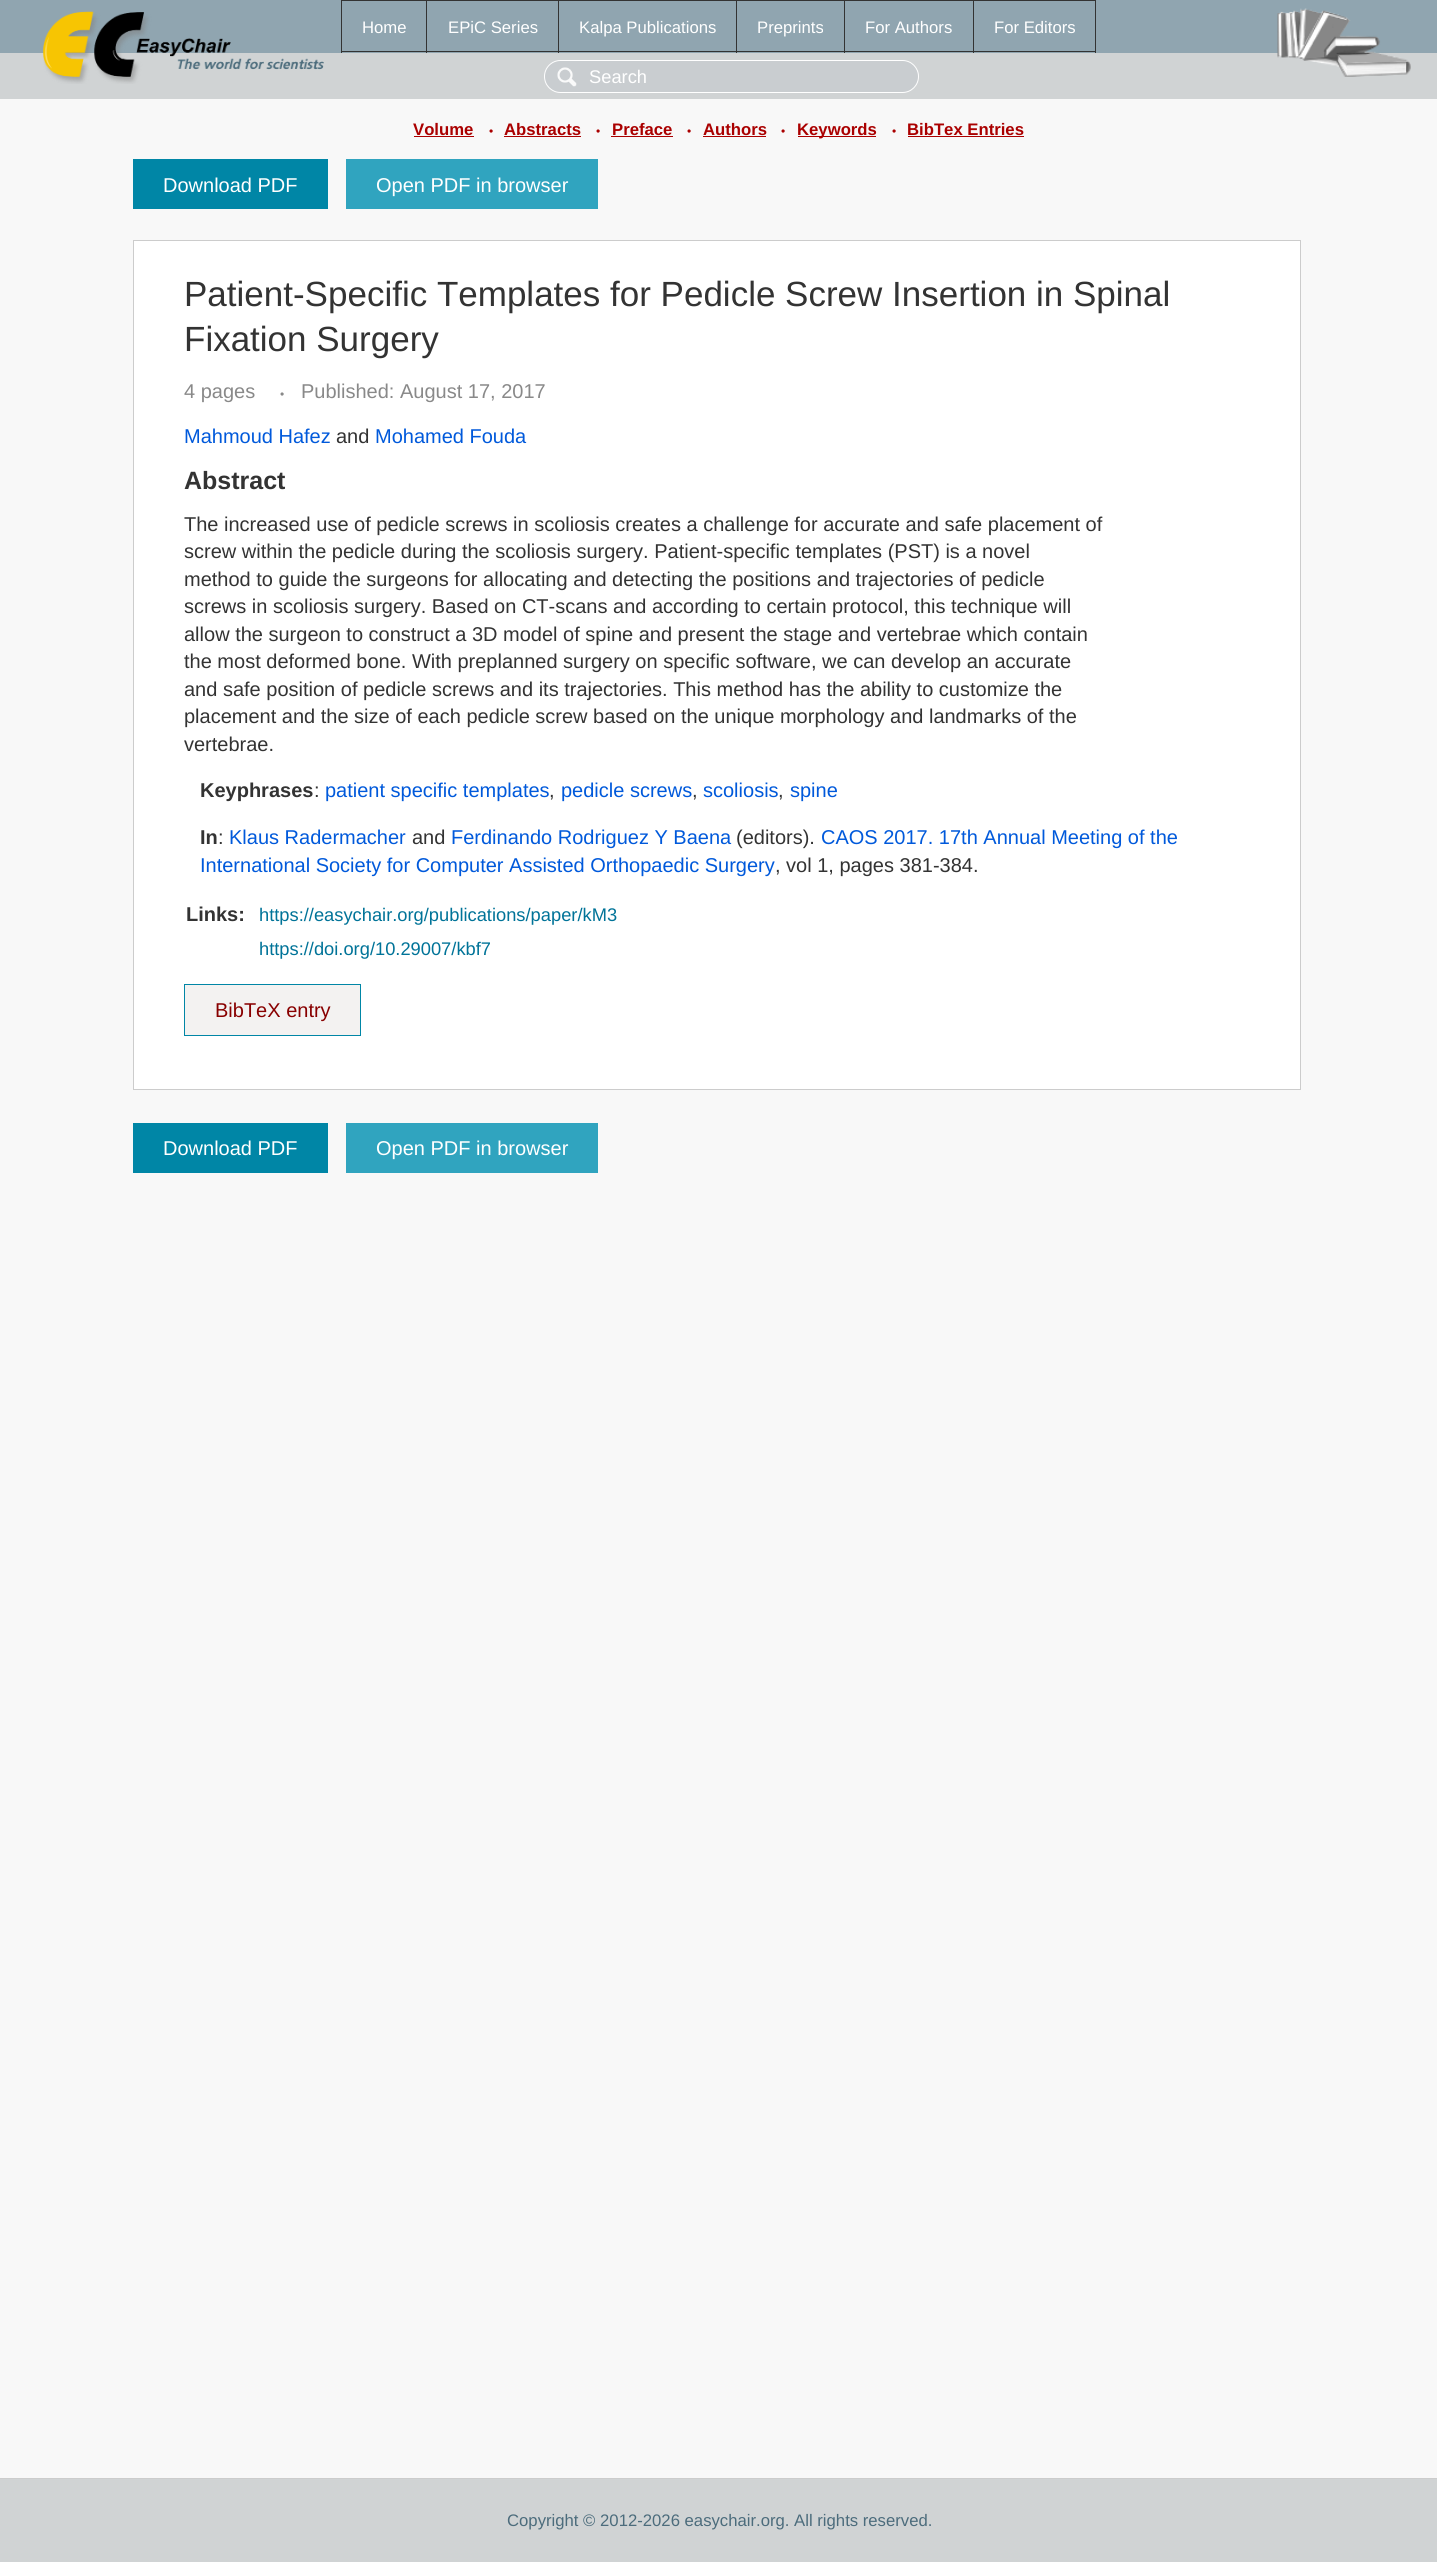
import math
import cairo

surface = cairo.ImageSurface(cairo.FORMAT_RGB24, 1437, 2562)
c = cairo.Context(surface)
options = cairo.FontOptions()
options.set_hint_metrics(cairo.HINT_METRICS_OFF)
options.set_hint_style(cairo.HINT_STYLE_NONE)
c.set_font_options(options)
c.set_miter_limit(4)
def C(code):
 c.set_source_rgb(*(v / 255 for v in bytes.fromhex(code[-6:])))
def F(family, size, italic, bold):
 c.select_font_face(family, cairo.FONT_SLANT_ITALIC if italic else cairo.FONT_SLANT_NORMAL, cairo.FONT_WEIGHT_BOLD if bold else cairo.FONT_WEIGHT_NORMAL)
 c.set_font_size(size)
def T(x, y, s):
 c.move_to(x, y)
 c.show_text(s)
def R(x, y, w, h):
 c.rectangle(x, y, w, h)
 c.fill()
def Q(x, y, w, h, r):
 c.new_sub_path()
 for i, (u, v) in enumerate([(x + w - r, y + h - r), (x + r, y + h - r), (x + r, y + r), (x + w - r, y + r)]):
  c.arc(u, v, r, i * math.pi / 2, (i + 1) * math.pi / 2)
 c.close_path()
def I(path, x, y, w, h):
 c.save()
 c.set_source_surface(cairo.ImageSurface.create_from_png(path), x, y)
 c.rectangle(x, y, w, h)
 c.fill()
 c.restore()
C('90a5b0')
c.paint()
C('d0d3d4')
R(0,54,1436,44)
R(0,53,1437,1)
I('1.png',43,11,281,73)
C('333333')
R(973,0,123,1)
R(1095,0,1,53)
R(973,51,123,1)
R(973,0,1,53)
R(844,0,130,1)
R(844,51,130,1)
R(844,0,1,53)
R(736,0,109,1)
R(736,51,109,1)
R(736,0,1,53)
R(558,0,180,1)
R(558,51,180,1)
R(558,0,1,53)
R(426,0,133,1)
R(426,51,133,1)
R(426,0,1,53)
R(341,0,87,1)
R(341,51,87,1)
R(341,0,1,53)
F('Liberation Sans',16.7,0,0)
C('ffffff')
T(362,33,'Home')
T(448,33,'EPiC Series')
T(579,33,'Kalpa Publications')
T(757,33,'Preprints')
T(865,33,'For Authors')
T(994,33,'For Editors')
I('2.png',1277,8,134,69)
C('d0d3d4')
R(1436,53,1,46)
R(0,98,1437,1)
C('c9cdd0')
Q(544,60,375,33,16.5)
c.fill()
I('3.png',557,67,20,20)
Q(544.5,60.5,374,32,16)
C('ffffff')
c.set_line_width(1)
c.stroke()
F('Liberation Sans',18.3,0,0)
T(589,83,'Search')
C('f8f8f8')
R(0,99,1437,2379)
F('Liberation Sans',16.7,0,1)
C('aa0000')
T(413,135,'Volume')
R(414,136,60,1)
F('Liberation Sans',12,0,0)
T(489,135,'•')
F('Liberation Sans',16.7,0,1)
T(504,135,'Abstracts')
R(504,136,77,1)
F('Liberation Sans',12,0,0)
T(596,135,'•')
F('Liberation Sans',16.7,0,1)
T(612,135,'Preface')
R(611,136,62,1)
F('Liberation Sans',12,0,0)
T(687,135,'•')
F('Liberation Sans',16.7,0,1)
T(703,135,'Authors')
R(703,136,63,1)
F('Liberation Sans',12,0,0)
T(781,135,'•')
R(798,136,78,1)
F('Liberation Sans',16.7,0,1)
T(797,135,'Keywords')
F('Liberation Sans',12,0,0)
T(892,135,'•')
F('Liberation Sans',16.7,0,1)
T(907,135,'BibTex Entries')
R(908,136,116,1)
C('0086a6')
R(133,159,195,50)
F('Liberation Sans',20,0,0)
C('ffffff')
T(163,192,'Download PDF')
C('30a4bf')
R(346,159,252,50)
C('ffffff')
T(376,192,'Open PDF in browser')
c.rectangle(133.5,240.5,1167,849)
c.fill_preserve()
C('cccccc')
c.stroke()
F('Liberation Sans',35,0,0)
C('333333')
T(184,306,'Patient-Specific Templates for Pedicle Screw Insertion in Spinal')
T(184,351,'Fixation Surgery')
F('Liberation Sans',20,0,0)
C('898989')
T(184,398,'4 pages')
F('Liberation Sans',12,0,0)
T(280,398,'•')
F('Liberation Sans',20,0,0)
T(301,398,'Published: August 17, 2017')
C('0059db')
T(184,443,'Mahmoud Hafez')
C('333333')
T(336,443,'and')
C('0059db')
T(375,443,'Mohamed Fouda')
F('Liberation Sans',25,0,1)
C('333333')
T(184,489,'Abstract')
F('Liberation Sans',20,0,0)
T(184,531,'The increased use of pedicle screws in scoliosis creates a challenge for accurate and safe placement of')
T(184,558,'screw within the pedicle during the scoliosis surgery. Patient-specific templates (PST) is a novel')
T(184,586,'method to guide the surgeons for allocating and detecting the positions and trajectories of pedicle')
T(184,613,'screws in scoliosis surgery. Based on CT-scans and according to certain protocol, this technique will')
T(184,641,'allow the surgeon to construct a 3D model of spine and present the stage and vertebrae which contain')
T(184,668,'the most deformed bone. With preplanned surgery on specific software, we can develop an accurate')
T(184,696,'and safe position of pedicle screws and its trajectories. This method has the ability to customize the')
T(184,723,'placement and the size of each pedicle screw based on the unique morphology and landmarks of the')
T(184,751,'vertebrae.')
F('Liberation Sans',20,0,1)
T(200,797,'Keyphrases')
F('Liberation Sans',20,0,0)
T(314,797,':')
C('0059db')
T(325,797,'patient specific templates')
C('333333')
T(549,797,',')
C('0059db')
T(561,797,'pedicle screws')
C('333333')
T(692,797,',')
C('0059db')
T(703,797,'scoliosis')
C('333333')
T(778,797,',')
C('0059db')
T(790,797,'spine')
F('Liberation Sans',20,0,1)
C('333333')
T(200,844,'In')
F('Liberation Sans',20,0,0)
T(218,844,':')
C('0059db')
T(229,844,'Klaus Radermacher')
C('333333')
T(412,844,'and')
C('0059db')
T(451,844,'Ferdinando Rodriguez Y Baena')
C('333333')
T(736,844,'(editors).')
C('0059db')
T(821,844,'CAOS 2017. 17th Annual Meeting of the')
T(200,872,'International Society for Computer Assisted Orthopaedic Surgery')
C('333333')
T(775,872,', vol 1, pages 381-384.')
F('Liberation Sans',20,0,1)
T(186,921,'Links:')
F('Liberation Sans',18.3,0,0)
C('007398')
T(259,921,'https://easychair.org/publications/paper/kM3')
T(259,955,'https://doi.org/10.29007/kbf7')
C('f3f2f1')
c.rectangle(184.5,984.5,176,51)
c.fill_preserve()
C('0086a6')
c.stroke()
F('Liberation Sans',20,0,0)
C('880000')
T(215,1017,'BibTeX entry')
C('0086a6')
R(133,1123,195,50)
C('ffffff')
T(163,1155,'Download PDF')
C('30a4bf')
R(346,1123,252,50)
C('ffffff')
T(376,1155,'Open PDF in browser')
C('d0d3d4')
R(0,2479,1437,83)
C('cccccc')
R(0,2478,1437,1)
F('Liberation Sans',16.7,0,0)
C('4c6c7c')
T(507,2526,'Copyright © 2012-2026 easychair.org. All rights reserved.')
surface.write_to_png('o.png')
